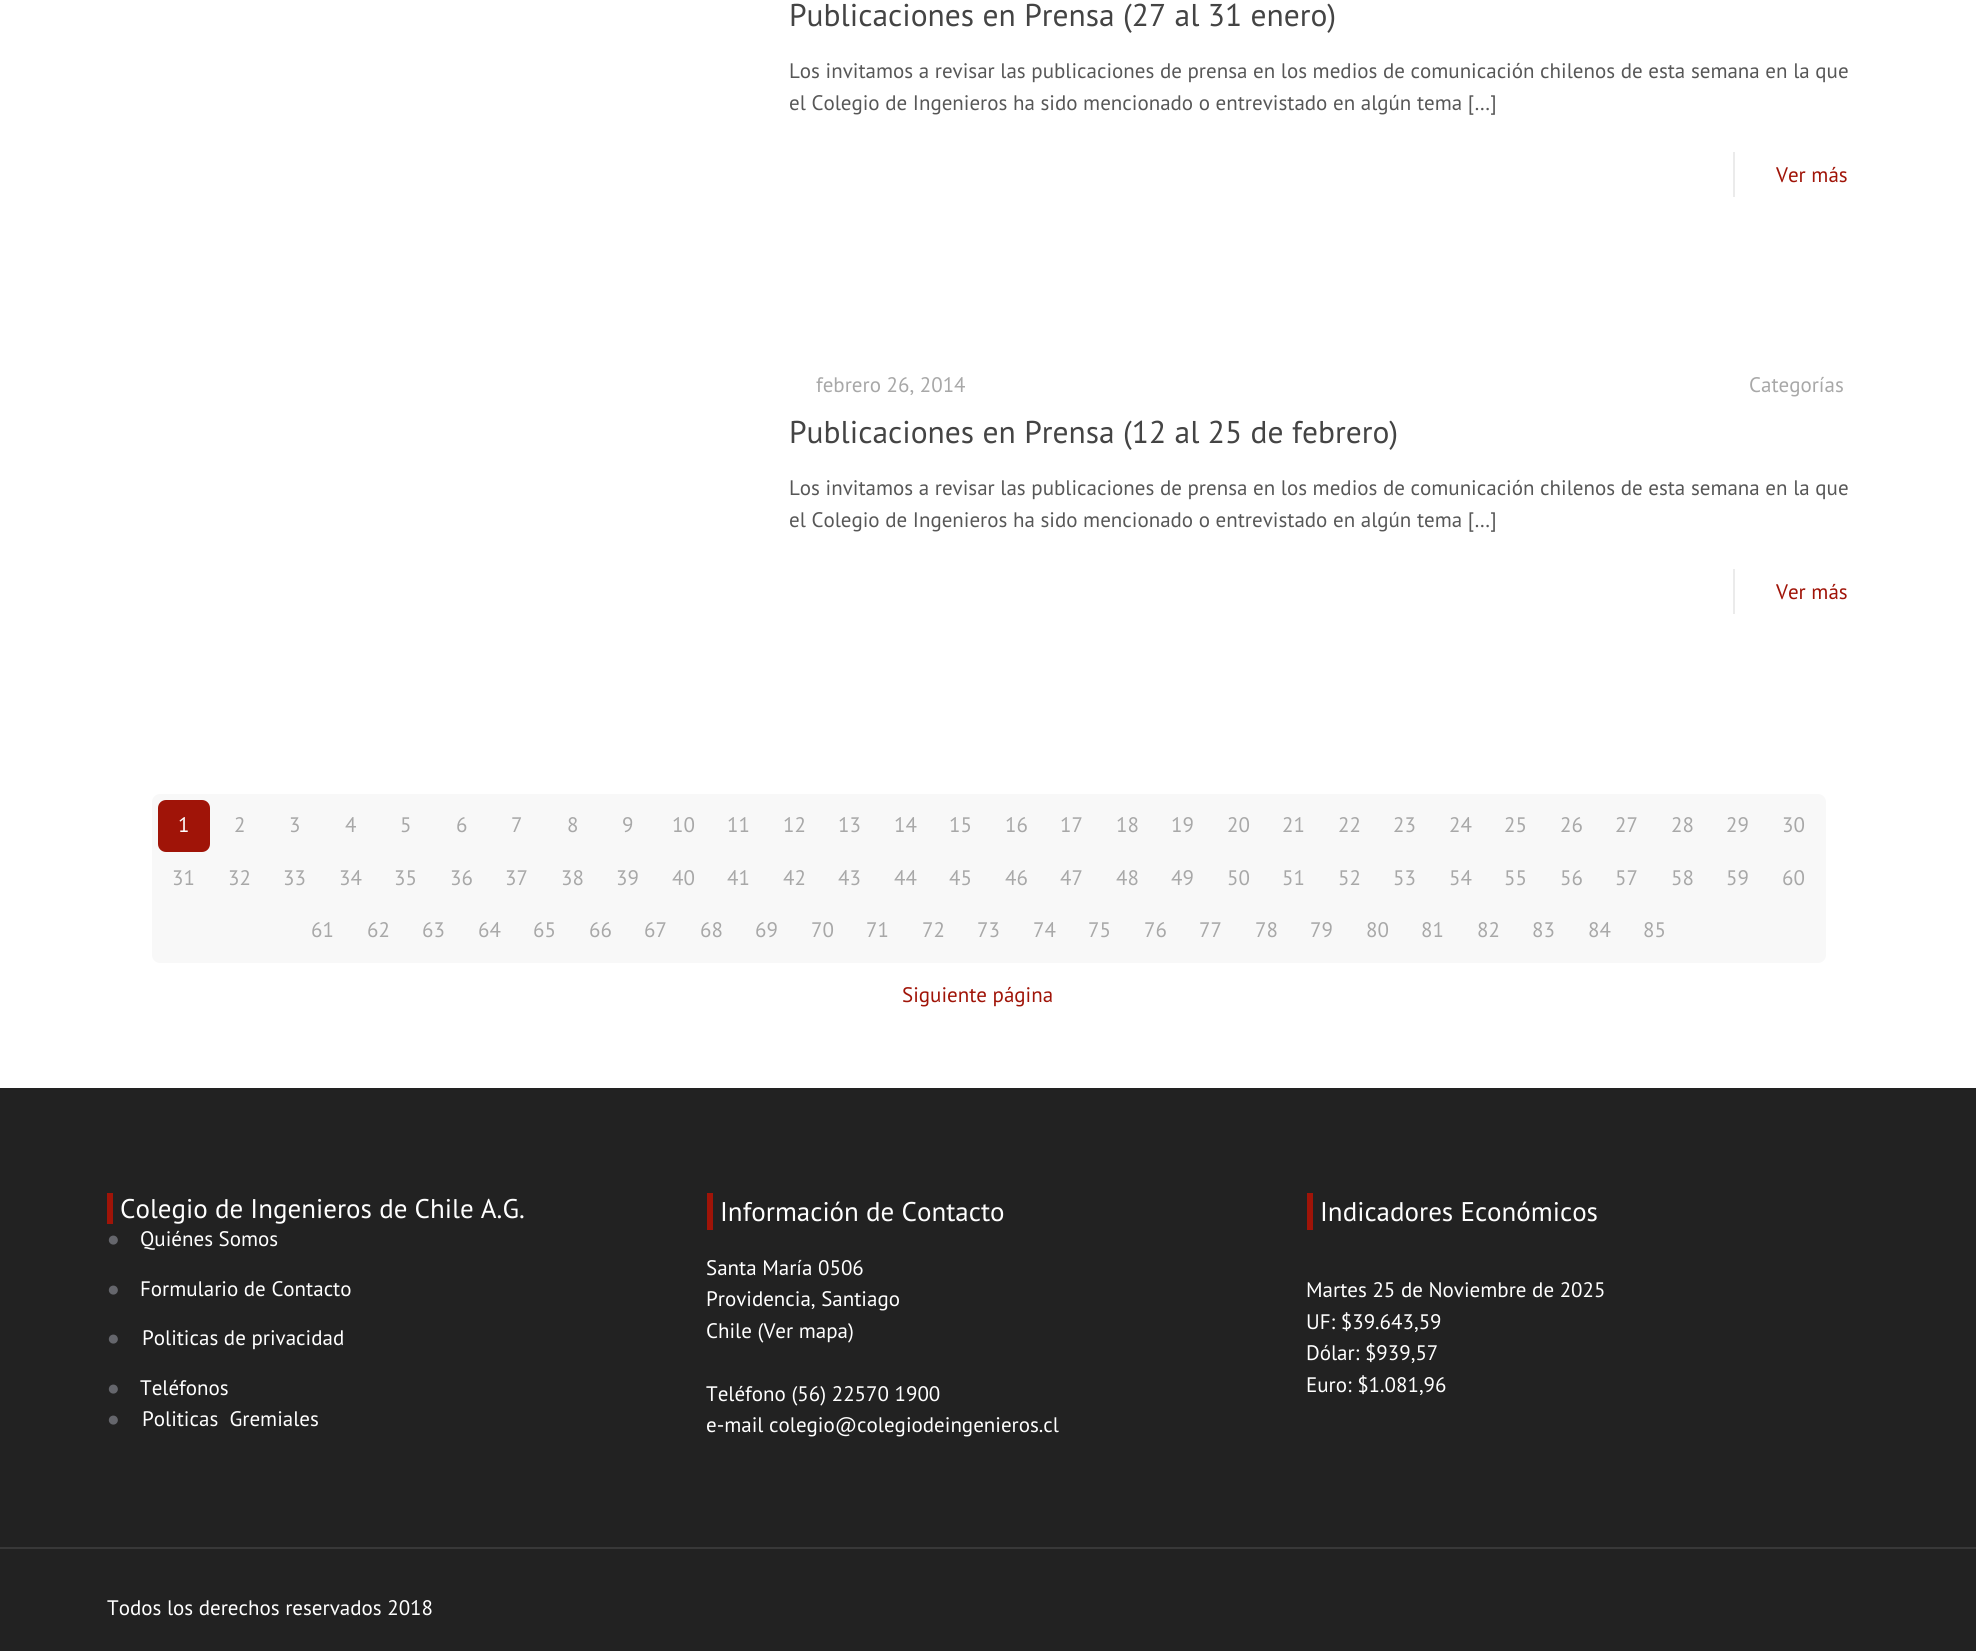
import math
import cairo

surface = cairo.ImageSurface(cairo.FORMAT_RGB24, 1976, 1651)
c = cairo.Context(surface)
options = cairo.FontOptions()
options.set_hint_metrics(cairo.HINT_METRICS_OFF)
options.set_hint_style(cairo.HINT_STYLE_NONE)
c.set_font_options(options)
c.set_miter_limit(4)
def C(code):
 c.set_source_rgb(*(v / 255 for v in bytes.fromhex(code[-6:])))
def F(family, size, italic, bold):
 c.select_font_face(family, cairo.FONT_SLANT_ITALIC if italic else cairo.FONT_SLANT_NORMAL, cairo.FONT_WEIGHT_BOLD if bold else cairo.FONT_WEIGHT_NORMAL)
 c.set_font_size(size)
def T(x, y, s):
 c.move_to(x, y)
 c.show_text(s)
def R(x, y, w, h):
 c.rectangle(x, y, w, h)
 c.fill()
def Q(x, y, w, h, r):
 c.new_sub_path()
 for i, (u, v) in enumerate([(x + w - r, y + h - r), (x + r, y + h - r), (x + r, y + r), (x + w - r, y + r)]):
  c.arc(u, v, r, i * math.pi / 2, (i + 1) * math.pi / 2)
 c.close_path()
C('ffffff')
c.paint()
F('PT Sans',31.5,0,0)
C('444444')
T(789,26,'Publicaciones en Prensa (27 al 31 enero)')
F('PT Sans',21,0,0)
C('575757')
T(789,78,'Los invitamos a revisar las publicaciones de prensa en los medios de comunicación chilenos de esta semana en la que')
T(789,110,'el Colegio de Ingenieros ha sido mencionado o entrevistado en algún tema […]')
C('ebebeb')
R(1733,152,2,45)
C('a01408')
T(1776,182,'Ver más')
C('a8a8a8')
T(816,392,'febrero 26, 2014')
T(1749,392,'Categorías')
F('PT Sans',31.5,0,0)
C('444444')
T(789,443,'Publicaciones en Prensa (12 al 25 de febrero)')
F('PT Sans',21,0,0)
C('575757')
T(789,495,'Los invitamos a revisar las publicaciones de prensa en los medios de comunicación chilenos de esta semana en la que')
T(789,527,'el Colegio de Ingenieros ha sido mencionado o entrevistado en algún tema […]')
C('ebebeb')
R(1733,569,2,45)
C('a01408')
T(1776,599,'Ver más')
C('f8f8f8')
Q(152,794,1674,169,8)
c.fill()
C('a01408')
Q(158,800,52,52,8)
c.fill()
C('ffffff')
T(178,832,'1')
C('a8a8a8')
T(234,832,'2')
T(289,832,'3')
T(345,832,'4')
T(400,832,'5')
T(456,832,'6')
T(511,832,'7')
T(567,832,'8')
T(622,832,'9')
T(672,832,'10')
T(727,832,'11')
T(783,832,'12')
T(838,832,'13')
T(894,832,'14')
T(949,832,'15')
T(1005,832,'16')
T(1060,832,'17')
T(1116,832,'18')
T(1171,832,'19')
T(1227,832,'20')
T(1282,832,'21')
T(1338,832,'22')
T(1393,832,'23')
T(1449,832,'24')
T(1504,832,'25')
T(1560,832,'26')
T(1615,832,'27')
T(1671,832,'28')
T(1726,832,'29')
T(1782,832,'30')
T(172,885,'31')
T(228,885,'32')
T(283,885,'33')
T(339,885,'34')
T(394,885,'35')
T(450,885,'36')
T(505,885,'37')
T(561,885,'38')
T(616,885,'39')
T(672,885,'40')
T(727,885,'41')
T(783,885,'42')
T(838,885,'43')
T(894,885,'44')
T(949,885,'45')
T(1005,885,'46')
T(1060,885,'47')
T(1116,885,'48')
T(1171,885,'49')
T(1227,885,'50')
T(1282,885,'51')
T(1338,885,'52')
T(1393,885,'53')
T(1449,885,'54')
T(1504,885,'55')
T(1560,885,'56')
T(1615,885,'57')
T(1671,885,'58')
T(1726,885,'59')
T(1782,885,'60')
T(311,937,'61')
T(367,937,'62')
T(422,937,'63')
T(478,937,'64')
T(533,937,'65')
T(589,937,'66')
T(644,937,'67')
T(700,937,'68')
T(755,937,'69')
T(811,937,'70')
T(866,937,'71')
T(922,937,'72')
T(977,937,'73')
T(1033,937,'74')
T(1088,937,'75')
T(1144,937,'76')
T(1199,937,'77')
T(1255,937,'78')
T(1310,937,'79')
T(1366,937,'80')
T(1421,937,'81')
T(1477,937,'82')
T(1532,937,'83')
T(1588,937,'84')
T(1643,937,'85')
C('a01408')
T(902,1002,'Siguiente página')
C('222222')
R(0,1088,1976,563)
C('a01408')
R(107,1193,6,31)
F('PT Sans',27,0,0)
C('ffffff')
T(120,1218,'Colegio de Ingenieros de Chile A.G.')
F('Liberation Sans',21,0,0)
C('65666c')
T(107,1246,'●')
F('PT Sans',21,0,0)
C('ffffff')
T(140,1246,'Quiénes Somos')
F('Liberation Sans',21,0,0)
C('65666c')
T(107,1296,'●')
F('PT Sans',21,0,0)
C('ffffff')
T(140,1296,'Formulario de Contacto')
F('Liberation Sans',21,0,0)
C('65666c')
T(107,1345,'●')
F('PT Sans',21,0,0)
C('ffffff')
T(142,1345,'Politicas de privacidad')
F('Liberation Sans',21,0,0)
C('65666c')
T(107,1395,'●')
F('PT Sans',21,0,0)
C('ffffff')
T(140,1395,'Teléfonos')
F('Liberation Sans',21,0,0)
C('65666c')
T(107,1426,'●')
F('PT Sans',21,0,0)
C('ffffff')
T(142,1426,'Politicas  Gremiales')
C('a01408')
R(707,1193,6,37)
F('PT Sans',27,0,0)
C('ffffff')
T(720,1221,'Información de Contacto')
F('PT Sans',21,0,0)
T(706,1275,'Santa María 0506')
T(706,1306,'Providencia, Santiago')
T(706,1338,'Chile (Ver mapa)')
T(706,1401,'Teléfono (56) 22570 1900')
T(706,1432,'e-mail colegio@colegiodeingenieros.cl')
C('a01408')
R(1307,1193,6,37)
F('PT Sans',27,0,0)
C('ffffff')
T(1320,1221,'Indicadores Económicos')
F('PT Sans',21,0,0)
T(1306,1297,'Martes 25 de Noviembre de 2025')
T(1306,1329,'UF: $39.643,59')
T(1306,1360,'Dólar: $939,57')
T(1306,1392,'Euro: $1.081,96')
C('383838')
R(0,1547,1976,2)
C('ffffff')
T(107,1615,'Todos los derechos reservados 2018')
surface.write_to_png('o.png')
